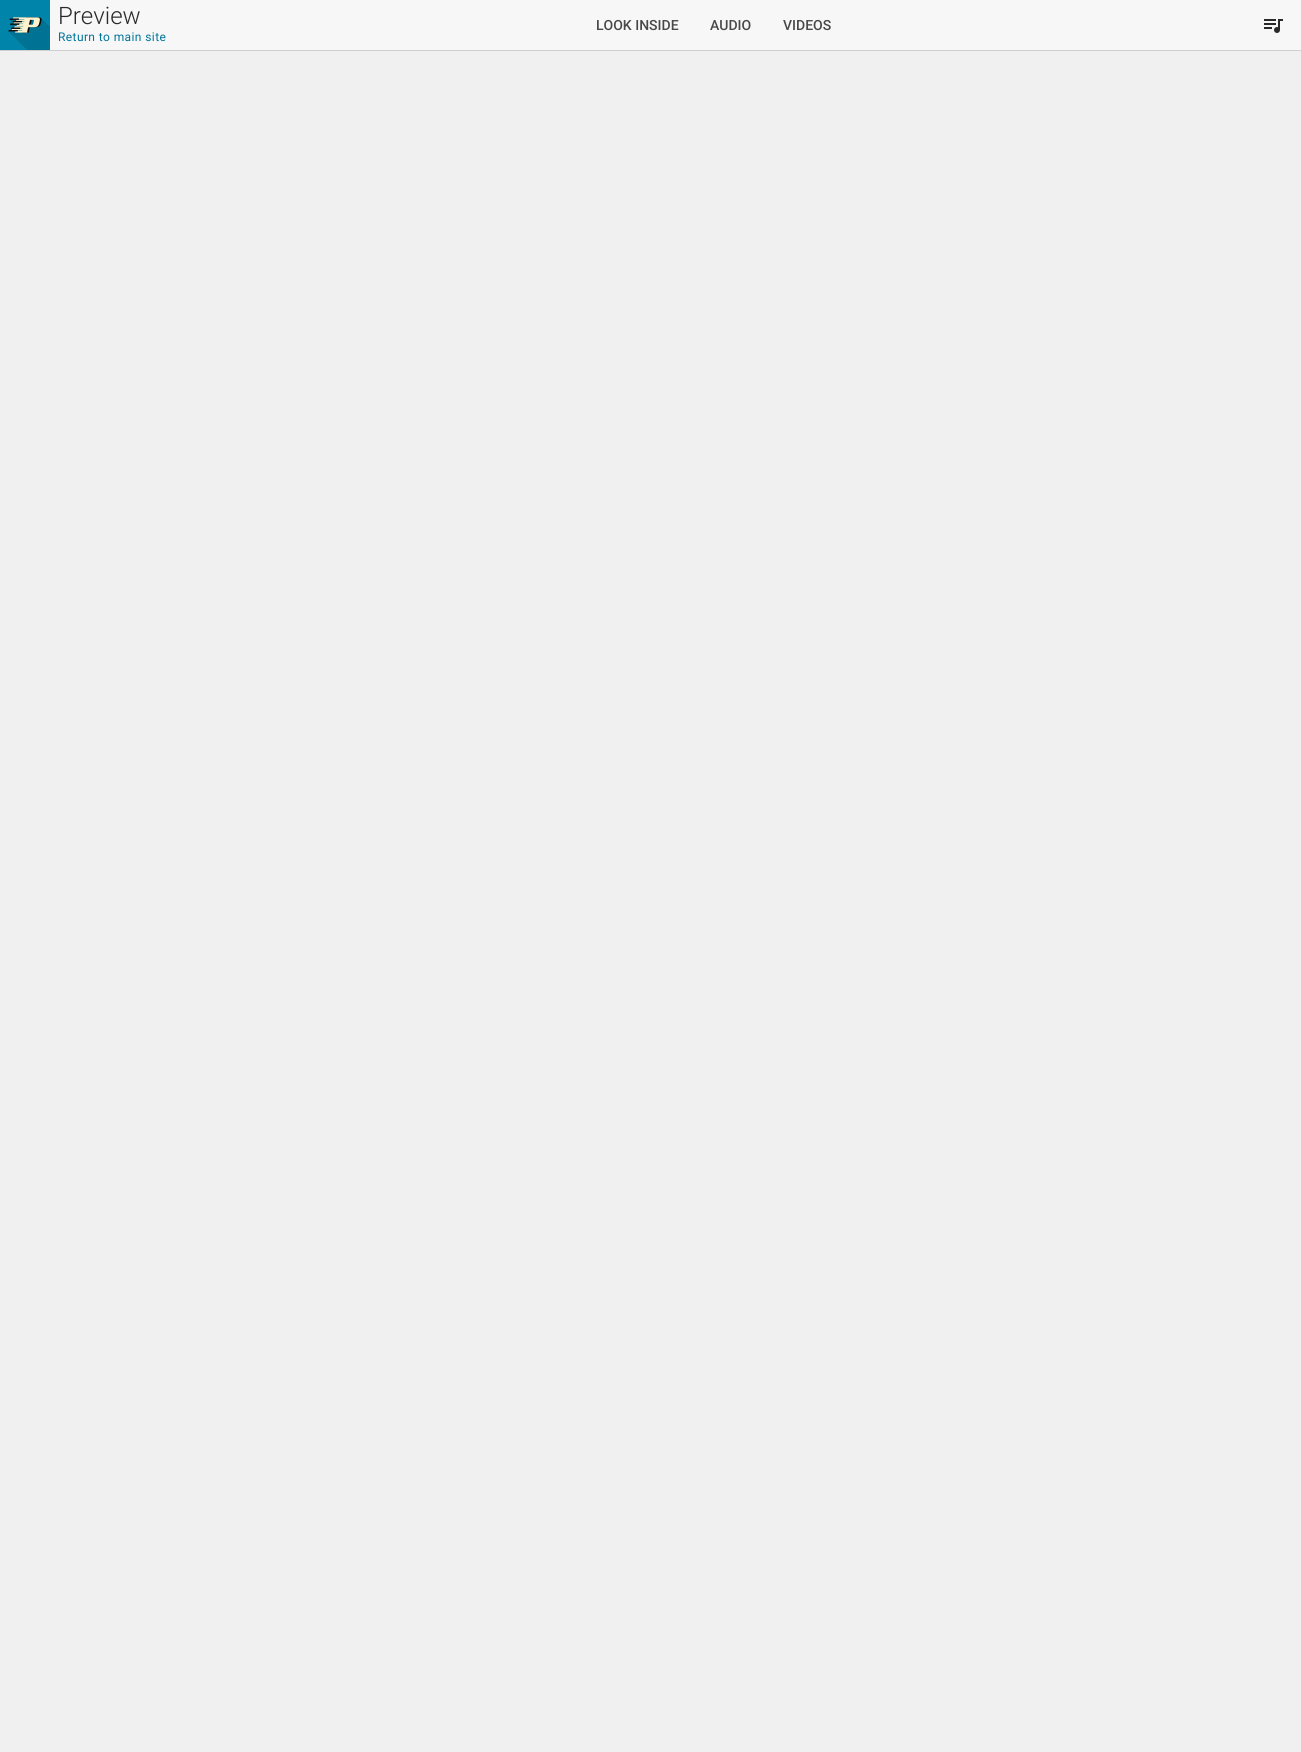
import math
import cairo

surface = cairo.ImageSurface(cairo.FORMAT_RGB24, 1301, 1752)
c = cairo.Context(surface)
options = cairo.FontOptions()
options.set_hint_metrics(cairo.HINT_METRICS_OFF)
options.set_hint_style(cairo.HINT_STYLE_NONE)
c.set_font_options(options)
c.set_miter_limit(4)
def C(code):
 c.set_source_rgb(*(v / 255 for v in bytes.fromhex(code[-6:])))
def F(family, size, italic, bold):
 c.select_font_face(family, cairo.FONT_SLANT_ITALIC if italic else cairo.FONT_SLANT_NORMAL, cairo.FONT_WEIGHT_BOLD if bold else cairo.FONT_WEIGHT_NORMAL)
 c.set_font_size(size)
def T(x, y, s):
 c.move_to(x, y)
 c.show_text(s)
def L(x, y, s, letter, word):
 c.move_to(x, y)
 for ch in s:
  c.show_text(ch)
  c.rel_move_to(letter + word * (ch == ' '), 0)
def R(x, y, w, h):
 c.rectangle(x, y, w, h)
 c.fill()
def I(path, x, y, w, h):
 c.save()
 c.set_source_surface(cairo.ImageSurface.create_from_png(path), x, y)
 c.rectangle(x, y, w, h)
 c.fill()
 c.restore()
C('f0f0f0')
c.paint()
C('f7f7f7')
R(50,0,1251,50)
C('cfcfcf')
R(0,50,1301,1)
I('1.png',0,0,50,50)
F('Roboto Light',24,0,0)
C('292929')
T(58,24,'Preview')
F('Roboto',12,0,0)
C('00759b')
L(58,41,'Return to main site',.4,0)
F('Roboto Medium',14,0,0)
C('484848')
T(596,30,'LOOK INSIDE')
T(710,30,'AUDIO')
T(783,30,'VIDEOS')
I('2.png',1264,19,19,14)
surface.write_to_png('o.png')
